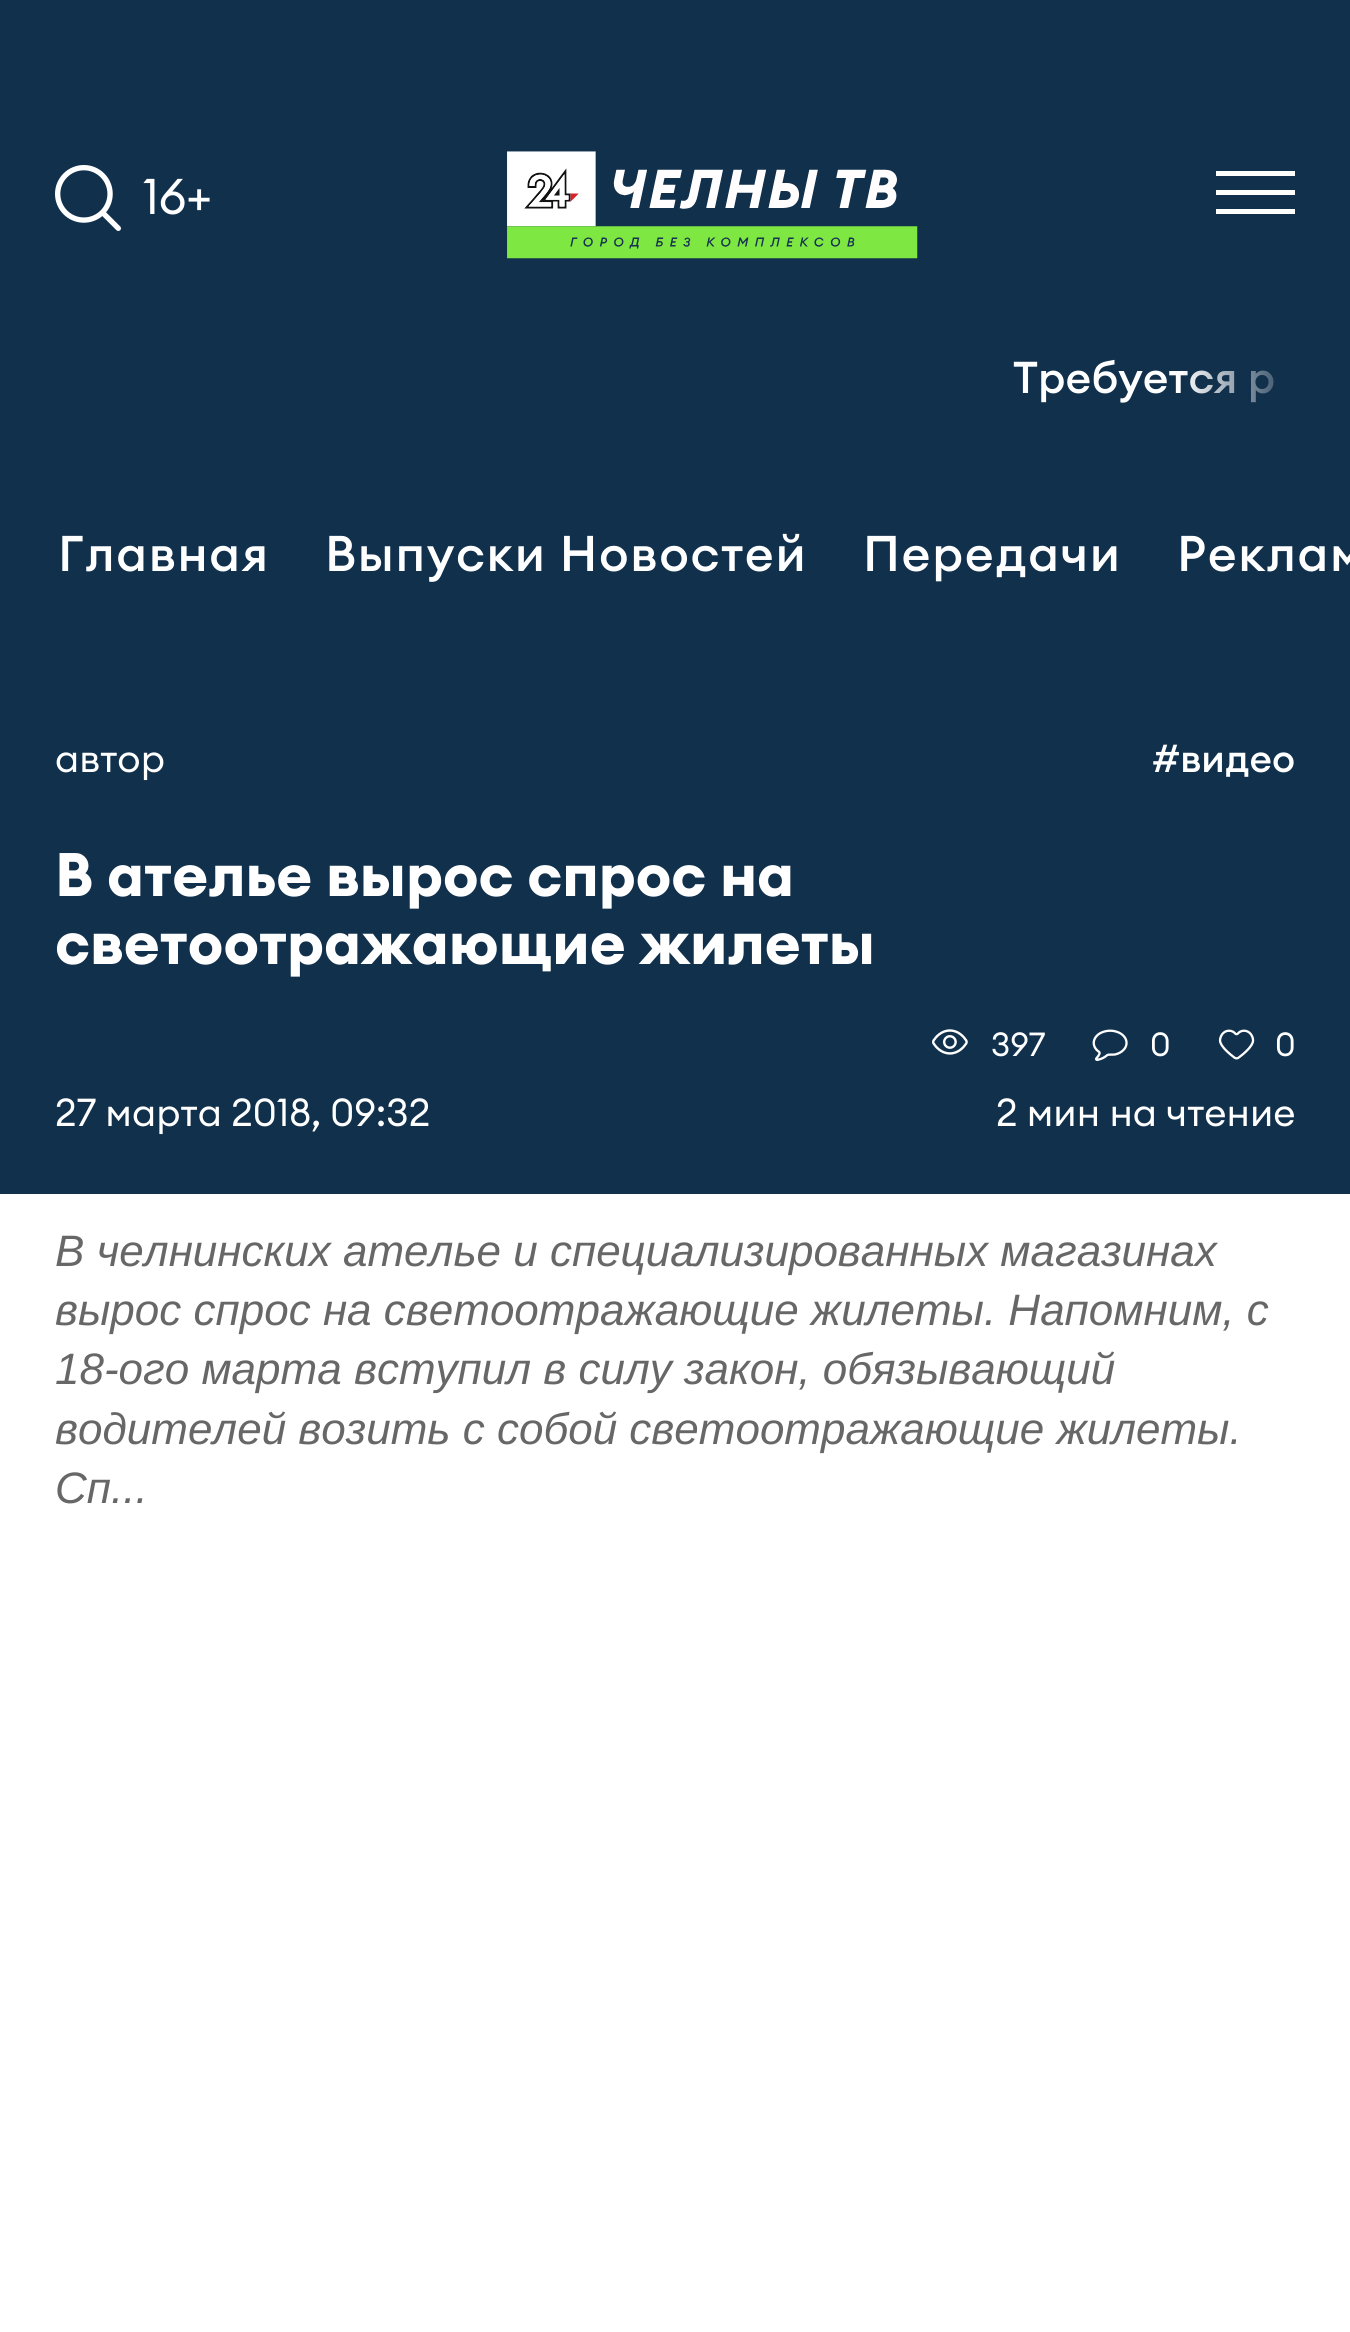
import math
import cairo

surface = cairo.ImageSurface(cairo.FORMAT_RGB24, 1350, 2332)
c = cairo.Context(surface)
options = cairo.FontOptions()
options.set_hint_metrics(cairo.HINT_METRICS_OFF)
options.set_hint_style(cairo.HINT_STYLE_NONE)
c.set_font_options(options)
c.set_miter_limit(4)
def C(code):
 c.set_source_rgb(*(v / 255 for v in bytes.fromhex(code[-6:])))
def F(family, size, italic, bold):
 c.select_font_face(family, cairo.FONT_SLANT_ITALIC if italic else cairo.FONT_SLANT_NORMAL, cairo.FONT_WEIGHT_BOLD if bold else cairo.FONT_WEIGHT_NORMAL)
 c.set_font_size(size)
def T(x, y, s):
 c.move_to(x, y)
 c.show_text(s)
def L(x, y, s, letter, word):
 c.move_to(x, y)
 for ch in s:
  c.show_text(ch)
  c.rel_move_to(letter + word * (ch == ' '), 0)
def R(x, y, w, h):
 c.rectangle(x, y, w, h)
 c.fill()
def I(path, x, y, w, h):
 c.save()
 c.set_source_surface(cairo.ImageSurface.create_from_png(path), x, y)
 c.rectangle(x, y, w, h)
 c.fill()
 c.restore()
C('ffffff')
c.paint()
C('11304c')
R(0,0,1350,1194)
I('1.png',55,165,66,66)
F('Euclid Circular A',49.5,0,0)
C('ffffff')
T(143,214,'16+')
I('2.png',507,151,411,108)
R(1216,171,79,5)
R(1216,190,79,5)
R(1216,209,79,5)
F('Euclid Circular A Medium',44,0,0)
T(1013,393,'Требуется р')
gradient = cairo.LinearGradient(1304,406,1180,406)
gradient.add_color_stop_rgba(0,0.067,0.188,0.298,1)
gradient.add_color_stop_rgba(1,0.067,0.188,0.298,0)
c.set_source(gradient)
R(1183,370,91,33)
F('Euclid Circular A Medium',49.5,0,0)
C('ffffff')
L(58,571,'Главная',1.6,0)
L(325,571,'Выпуски Новостей',1.6,0)
L(863,571,'Передачи',1.6,0)
L(1177,571,'Реклам',1.6,0)
F('Euclid Circular A',38.5,0,0)
T(55,772,'автор')
F('Euclid Circular A Medium',38.5,0,0)
T(1152,772,'#видео')
F('Euclid Circular A',60.5,0,1)
T(55,896,'В ателье вырос спрос на')
T(55,964,'светоотражающие жилеты')
F('Euclid Circular A',38.5,0,0)
T(55,1126,'27 марта 2018, 09:32')
I('3.png',932,1029,36,26)
F('Euclid Circular A',33,0,0)
T(991,1056,'397')
I('4.png',1092,1029,36,32)
T(1150,1056,'0')
I('5.png',1218,1029,37,31)
T(1275,1056,'0')
F('Euclid Circular A',38.5,0,0)
T(996,1126,'2 мин на чтение')
F('Liberation Sans',44,1,0)
C('676767')
T(55,1266,'В челнинских ателье и специализированных магазинах')
T(55,1325,'вырос спрос на светоотражающие жилеты. Напомним, с')
T(55,1384,'18-ого марта вступил в силу закон, обязывающий')
T(55,1444,'водителей возить с собой светоотражающие жилеты.')
T(55,1503,'Сп...')
surface.write_to_png('o.png')
